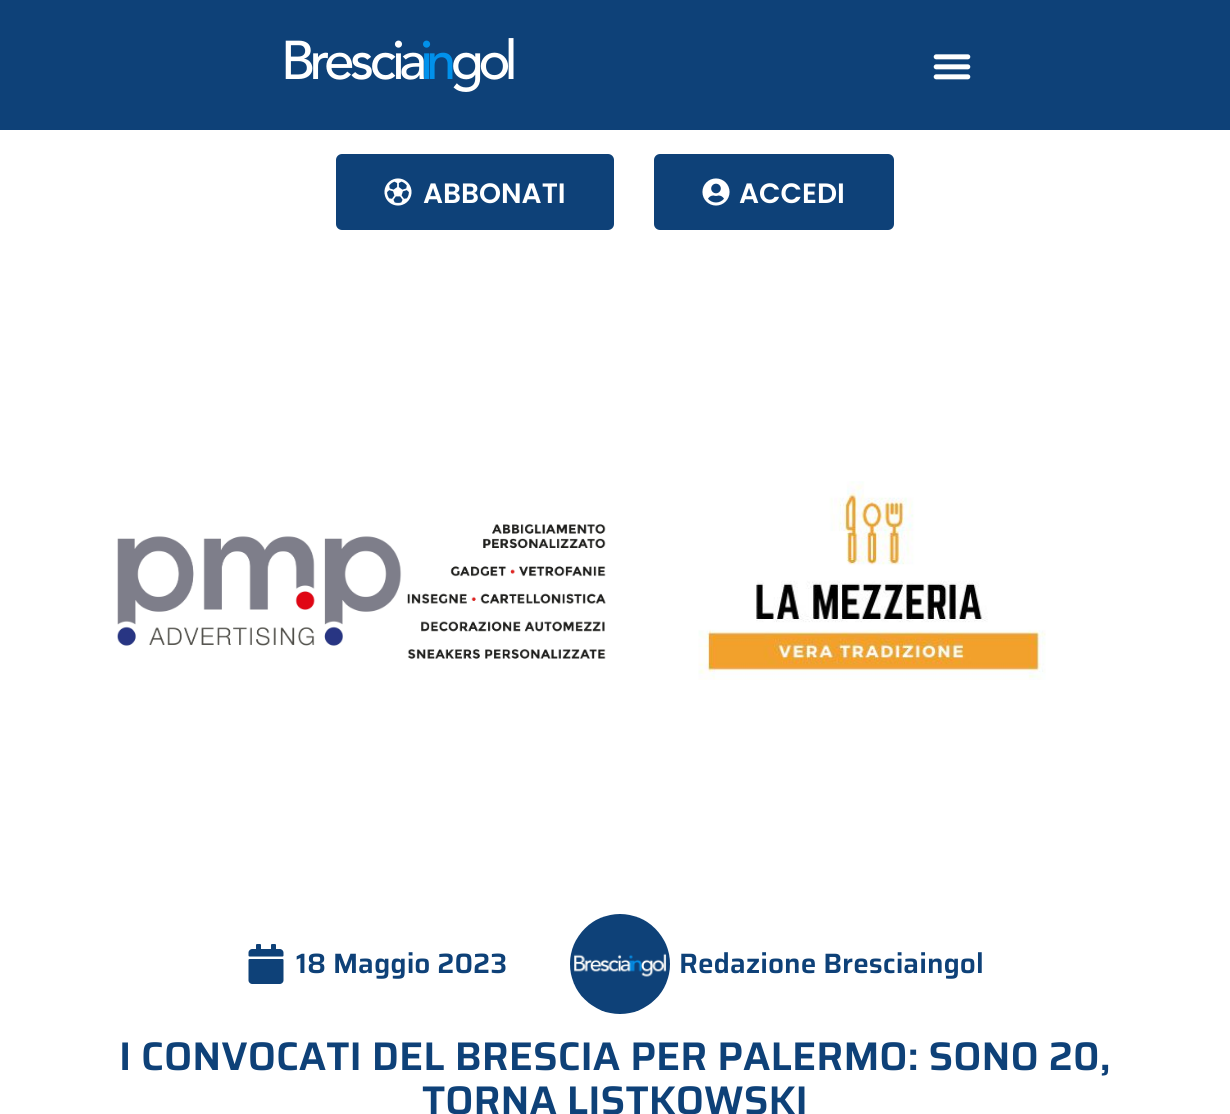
import math
import cairo

surface = cairo.ImageSurface(cairo.FORMAT_RGB24, 1230, 1114)
c = cairo.Context(surface)
options = cairo.FontOptions()
options.set_hint_metrics(cairo.HINT_METRICS_OFF)
options.set_hint_style(cairo.HINT_STYLE_NONE)
c.set_font_options(options)
c.set_miter_limit(4)
def C(code):
 c.set_source_rgb(*(v / 255 for v in bytes.fromhex(code[-6:])))
def F(family, size, italic, bold):
 c.select_font_face(family, cairo.FONT_SLANT_ITALIC if italic else cairo.FONT_SLANT_NORMAL, cairo.FONT_WEIGHT_BOLD if bold else cairo.FONT_WEIGHT_NORMAL)
 c.set_font_size(size)
def T(x, y, s):
 c.move_to(x, y)
 c.show_text(s)
def R(x, y, w, h):
 c.rectangle(x, y, w, h)
 c.fill()
def Q(x, y, w, h, r):
 c.new_sub_path()
 for i, (u, v) in enumerate([(x + w - r, y + h - r), (x + r, y + h - r), (x + r, y + r), (x + w - r, y + r)]):
  c.arc(u, v, r, i * math.pi / 2, (i + 1) * math.pi / 2)
 c.close_path()
def I(path, x, y, w, h):
 c.save()
 c.set_source_surface(cairo.ImageSurface.create_from_png(path), x, y)
 c.rectangle(x, y, w, h)
 c.fill()
 c.restore()
C('ffffff')
c.paint()
C('0e4178')
R(0,0,1230,130)
I('1.png',285,38,229,54)
I('2.png',933,54,38,26)
Q(336,154,278,76,6)
c.fill()
I('3.png',384,178,28,28)
F('Poppins SemiBold',28,0,0)
C('ffffff')
T(423,203,'ABBONATI')
C('0e4178')
Q(654,154,240,76,6)
c.fill()
I('4.png',702,178,28,28)
C('ffffff')
T(739,203,'ACCEDI')
I('5.png',117,524,489,135)
I('6.png',698,481,348,199)
I('7.png',248,944,36,40)
F('Saira SemiBold',28,0,0)
C('0e4178')
T(296,973,'18 Maggio 2023')
I('8.png',570,914,100,100)
T(679,973,'Redazione Bresciaingol')
F('Saira SemiBold',40,0,0)
T(119,1070,'I CONVOCATI DEL BRESCIA PER PALERMO: SONO 20,')
T(422,1114,'TORNA LISTKOWSKI')
surface.write_to_png('o.png')
